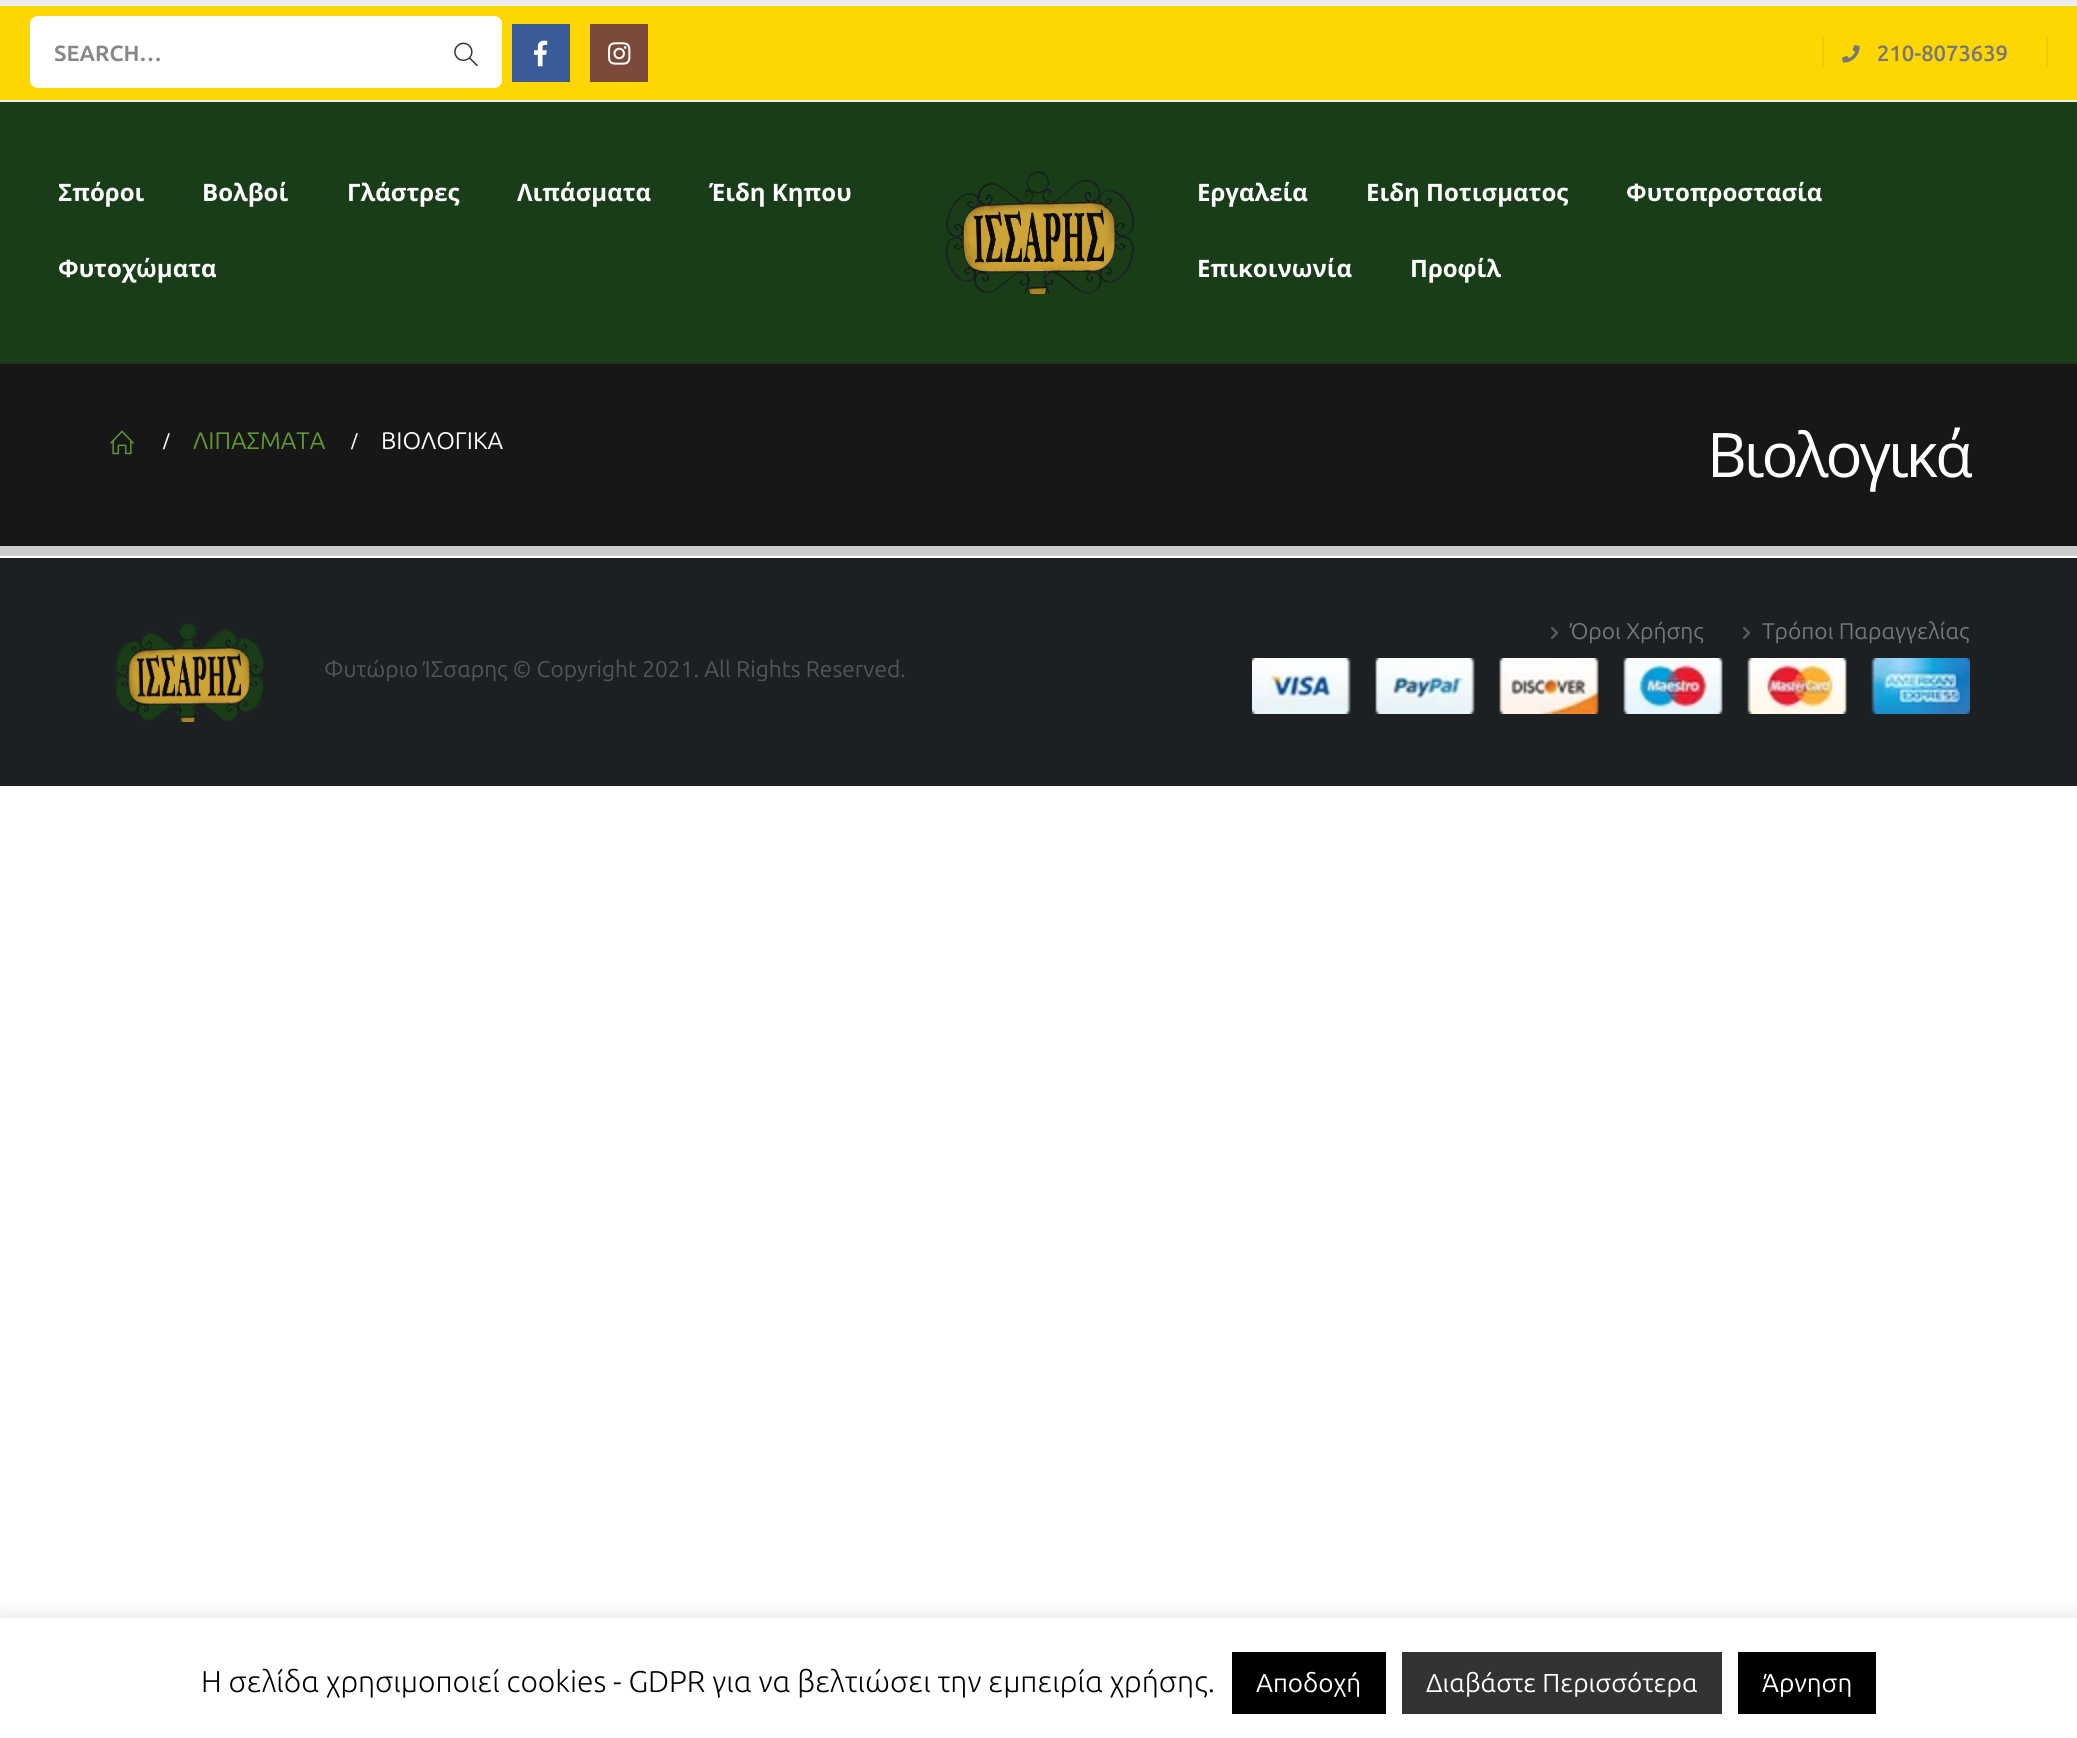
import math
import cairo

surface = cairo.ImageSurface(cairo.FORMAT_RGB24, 2077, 1738)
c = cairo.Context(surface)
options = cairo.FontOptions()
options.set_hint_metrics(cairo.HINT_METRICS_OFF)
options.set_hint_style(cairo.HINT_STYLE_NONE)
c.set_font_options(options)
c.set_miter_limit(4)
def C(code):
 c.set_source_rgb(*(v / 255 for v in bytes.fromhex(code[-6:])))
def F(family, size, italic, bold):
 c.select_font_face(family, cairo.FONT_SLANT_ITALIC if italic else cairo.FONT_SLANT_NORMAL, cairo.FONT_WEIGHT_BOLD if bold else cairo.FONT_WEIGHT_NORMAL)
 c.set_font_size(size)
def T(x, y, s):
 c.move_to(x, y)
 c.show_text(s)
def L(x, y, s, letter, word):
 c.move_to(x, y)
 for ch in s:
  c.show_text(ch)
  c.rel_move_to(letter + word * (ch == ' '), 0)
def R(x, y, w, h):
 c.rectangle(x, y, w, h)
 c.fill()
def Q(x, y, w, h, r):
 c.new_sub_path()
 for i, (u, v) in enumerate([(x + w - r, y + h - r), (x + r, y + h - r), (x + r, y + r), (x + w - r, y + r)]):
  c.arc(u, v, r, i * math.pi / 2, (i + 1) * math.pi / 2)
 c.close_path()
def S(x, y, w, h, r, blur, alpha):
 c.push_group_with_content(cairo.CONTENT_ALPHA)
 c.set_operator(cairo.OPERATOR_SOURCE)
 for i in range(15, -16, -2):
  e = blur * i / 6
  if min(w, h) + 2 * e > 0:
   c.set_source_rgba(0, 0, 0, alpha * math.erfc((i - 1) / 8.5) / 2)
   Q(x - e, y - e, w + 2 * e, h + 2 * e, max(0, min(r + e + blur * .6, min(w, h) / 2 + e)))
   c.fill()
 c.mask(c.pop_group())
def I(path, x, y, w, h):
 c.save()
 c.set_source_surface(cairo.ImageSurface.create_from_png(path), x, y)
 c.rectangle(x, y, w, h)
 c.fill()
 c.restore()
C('ffffff')
c.paint()
C('193d19')
R(0,102,2077,260)
C('ededed')
R(0,0,2077,6)
C('fed602')
R(0,6,2077,94)
C('ededed')
R(0,100,2077,2)
C('ffffff')
Q(30,16,472,72,8)
c.fill()
F('Ubuntu',22,0,1)
C('888888')
T(54,61,'SEARCH…')
I('1.png',454,42,24,25)
C('3b5a9a')
R(512,24,58,58)
I('2.png',534,40,14,27)
C('7c4a3a')
R(590,24,58,58)
I('3.png',608,42,23,23)
C('f1cb02')
R(1822,36,2,32)
I('4.png',1842,45,18,18)
F('Ubuntu SemiBold',22,0,0)
C('777777')
T(1877,61,'210-8073639')
C('f1cb02')
R(2046,36,2,32)
C('173817')
R(0,362,2077,2)
F('Open Sans',24,0,1)
C('ffffff')
T(58,201,'Σπόροι')
T(202,201,'Βολβοί')
T(347,201,'Γλάστρες')
T(517,201,'Λιπάσματα')
T(709,201,'Έιδη Κηπου')
T(58,277,'Φυτοχώματα')
I('5.png',945,171,189,123)
T(1197,201,'Εργαλεία')
T(1366,201,'Ειδη Ποτισματος')
T(1626,201,'Φυτοπροστασία')
T(1197,277,'Επικοινωνία')
T(1410,277,'Προφίλ')
C('171717')
R(0,364,2077,182)
C('cccccc')
R(0,546,2077,10)
I('6.png',110,430,24,25)
F('Liberation Serif',24,0,1)
C('ffffff')
T(163,449,'/')
F('Ubuntu',24,0,0)
C('62992f')
T(193,449,'ΛΙΠΑΣΜΑΤΑ')
F('Liberation Serif',24,0,1)
C('ffffff')
T(351,449,'/')
F('Ubuntu',24,0,0)
T(381,449,'ΒΙΟΛΟΓΙΚΑ')
F('Open Sans',61.5,0,0)
L(1707,477,'Βιολογικά',-3,0)
C('1c2023')
R(0,558,2077,228)
I('7.png',1550,627,9,12)
F('Ubuntu',22.7,0,0)
C('777777')
T(1570,639,'Όροι Χρήσης')
I('7.png',1742,627,9,12)
T(1762,639,'Τρόποι Παραγγελίας')
I('8.png',1252,658,718,56)
I('9.png',114,622,151,100)
C('555555')
T(324,677,'Φυτώριο ΊΣσαρης © Copyright 2021. All Rights Reserved.')
c.save()
c.rectangle(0,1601,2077,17)
c.clip()
C('acabab')
S(0,1616,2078,120,0,10,.3)
c.restore()
F('Ubuntu Light',30,0,0)
C('000000')
T(201,1692,'Η σελίδα χρησιμοποιεί cookies - GDPR για να βελτιώσει την εμπειρία χρήσης.')
R(1232,1652,154,62)
F('Ubuntu',26,0,0)
C('ffffff')
T(1256,1692,'Αποδοχή')
C('333333')
R(1402,1652,320,62)
C('ffffff')
T(1426,1692,'Διαβάστε Περισσότερα')
C('000000')
R(1738,1652,138,62)
C('ffffff')
T(1762,1692,'Άρνηση')
surface.write_to_png('o.png')
